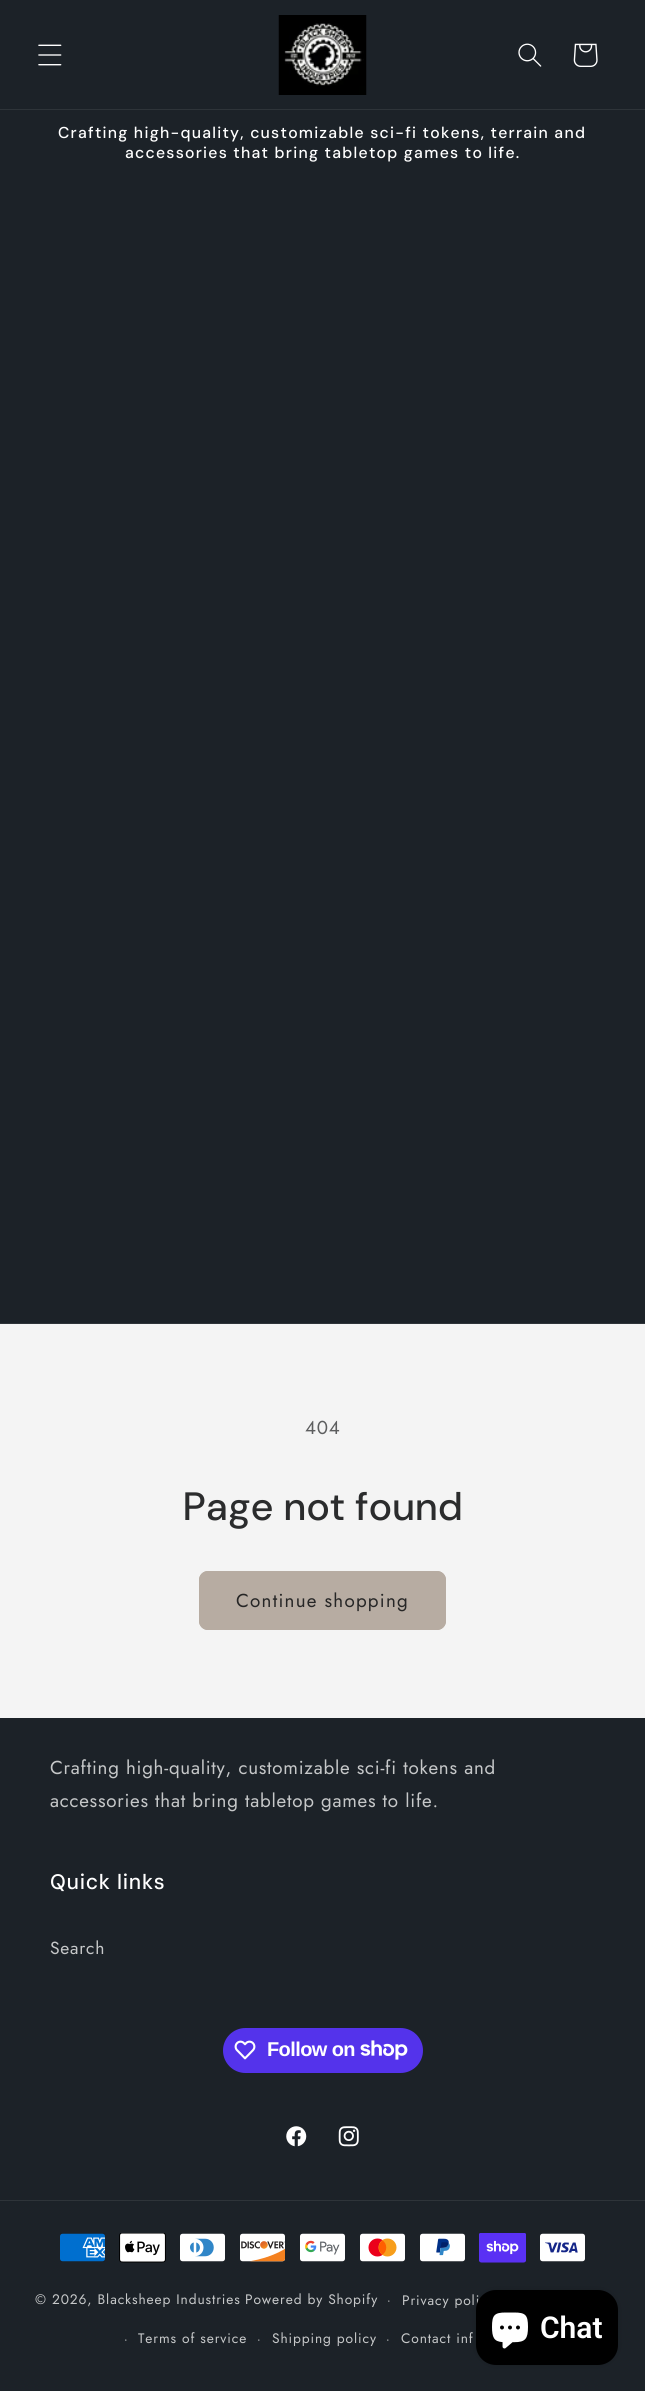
import math
import cairo

surface = cairo.ImageSurface(cairo.FORMAT_RGB24, 645, 2391)
c = cairo.Context(surface)
options = cairo.FontOptions()
options.set_hint_metrics(cairo.HINT_METRICS_OFF)
options.set_hint_style(cairo.HINT_STYLE_NONE)
c.set_font_options(options)
c.set_miter_limit(4)
def C(code):
 c.set_source_rgb(*(v / 255 for v in bytes.fromhex(code[-6:])))
def F(family, size, italic, bold):
 c.select_font_face(family, cairo.FONT_SLANT_ITALIC if italic else cairo.FONT_SLANT_NORMAL, cairo.FONT_WEIGHT_BOLD if bold else cairo.FONT_WEIGHT_NORMAL)
 c.set_font_size(size)
def T(x, y, s):
 c.move_to(x, y)
 c.show_text(s)
def L(x, y, s, letter, word):
 c.move_to(x, y)
 for ch in s:
  c.show_text(ch)
  c.rel_move_to(letter + word * (ch == ' '), 0)
def R(x, y, w, h):
 c.rectangle(x, y, w, h)
 c.fill()
def Q(x, y, w, h, r):
 c.new_sub_path()
 for i, (u, v) in enumerate([(x + w - r, y + h - r), (x + r, y + h - r), (x + r, y + r), (x + w - r, y + r)]):
  c.arc(u, v, r, i * math.pi / 2, (i + 1) * math.pi / 2)
 c.close_path()
def S(x, y, w, h, r, blur, alpha):
 c.push_group_with_content(cairo.CONTENT_ALPHA)
 c.set_operator(cairo.OPERATOR_SOURCE)
 for i in range(15, -16, -2):
  e = blur * i / 6
  if min(w, h) + 2 * e > 0:
   c.set_source_rgba(0, 0, 0, alpha * math.erfc((i - 1) / 8.5) / 2)
   Q(x - e, y - e, w + 2 * e, h + 2 * e, max(0, min(r + e + blur * .6, min(w, h) / 2 + e)))
   c.fill()
 c.mask(c.pop_group())
def I(path, x, y, w, h):
 c.save()
 c.set_source_surface(cairo.ImageSurface.create_from_png(path), x, y)
 c.rectangle(x, y, w, h)
 c.fill()
 c.restore()
C('f4f4f4')
c.paint()
C('1c2228')
R(0,0,645,109)
C('2e3439')
R(0,109,645,1)
I('1.png',38,44,24,22)
I('2.png',278,15,89,80)
I('3.png',518,43,24,24)
I('4.png',573,43,25,24)
C('1c2228')
R(0,110,645,1213)
C('2e3439')
R(0,1323,645,1)
F('DM Sans Medium',15.75,0,0)
C('ffffff')
L(58,138,'Crafting high-quality, customizable sci-fi tokens, terrain and',1.25,0)
L(125,158,'accessories that bring tabletop games to life.',1.25,0)
F('Jost',18.75,0,0)
C('5d5e5f')
L(305,1434,'404',.75,0)
F('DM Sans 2 Medium',39.5,0,0)
C('2b2c2d')
L(183,1520,'Page not found',.75,0)
C('b7aca2')
Q(199,1571,247,59,9)
c.fill()
Q(199.5,1571.5,246,58,8.5)
c.set_line_width(1)
c.stroke()
F('Jost',18.75,0,0)
C('262626')
L(236,1607,'Continue shopping',1.25,0)
C('1c2228')
R(0,1718,645,673)
C('c6c8c9')
L(50,1774,'Crafting high-quality, customizable sci-fi tokens and',.75,0)
L(50,1807,'accessories that bring tabletop games to life.',.75,0)
F('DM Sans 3 Medium',21,0,0)
C('ffffff')
L(50,1889,'Quick links',.75,0)
F('Jost',17.5,0,0)
C('c6c8c9')
L(50,1954,'Search',.75,0)
C('5433eb')
Q(223,2028,200,45,22.5)
c.fill()
I('5.png',234,2040,22,20)
F('Liberation Sans',20,0,1)
C('ffffff')
L(267,2056,'Follow on',-.6,0)
I('6.png',360,2040,48,20)
I('7.png',286,2126,21,21)
I('8.png',338,2126,21,21)
C('2e3439')
R(0,2200,645,1)
I('9.png',60,2233,45,29)
I('10.png',119,2233,47,30)
I('11.png',180,2233,45,29)
I('12.png',240,2233,45,29)
I('13.png',300,2233,45,29)
I('14.png',360,2233,45,29)
I('15.png',420,2233,45,29)
I('16.png',479,2233,47,30)
I('17.png',540,2233,45,29)
F('Jost',13.75,0,0)
C('c6c8c9')
L(35,2304,'© 2026, Blacksheep Industries',.9,0)
L(245,2304,'Powered by Shopify',.9,0)
F('Jost',12,0,0)
L(387,2304,'·',.9,0)
F('Jost',13.75,0,0)
L(402,2305,'Privacy poli',.9,0)
F('Jost',12,0,0)
L(124,2343,'·',.9,0)
F('Jost',13.75,0,0)
L(138,2343,'Terms of service',.9,0)
F('Jost',12,0,0)
L(257,2343,'·',.9,0)
F('Jost',13.75,0,0)
L(272,2343,'Shipping policy',.9,0)
F('Jost',12,0,0)
L(386,2343,'·',.9,0)
F('Jost',13.75,0,0)
L(401,2343,'Contact inf',.9,0)
C('000000')
S(476,2290,142,75,20,3,.15)
C('000000')
Q(476,2290,142,75,20)
c.fill()
I('18.png',492,2312,36,37)
F('Roboto SemiBold',30,0,0)
C('ffffff')
T(540,2338,'Chat')
surface.write_to_png('o.png')
